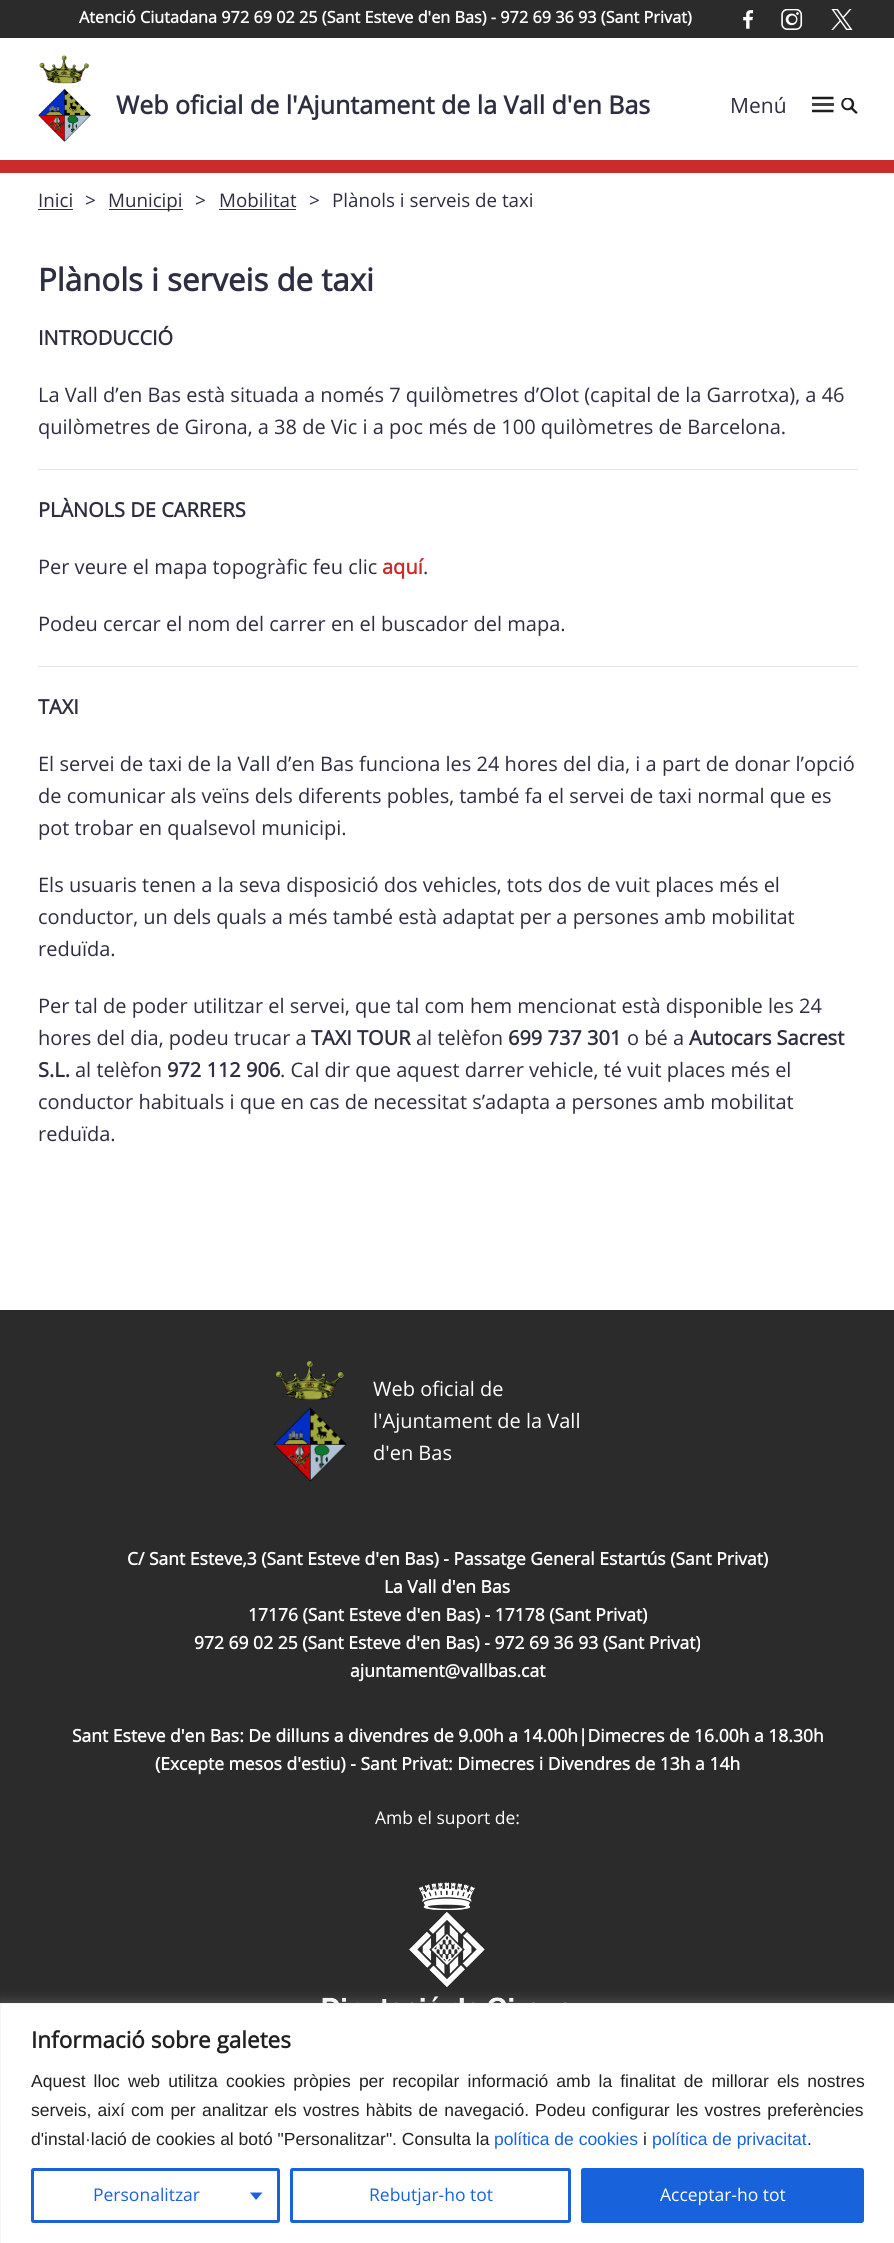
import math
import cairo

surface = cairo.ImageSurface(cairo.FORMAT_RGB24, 894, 2243)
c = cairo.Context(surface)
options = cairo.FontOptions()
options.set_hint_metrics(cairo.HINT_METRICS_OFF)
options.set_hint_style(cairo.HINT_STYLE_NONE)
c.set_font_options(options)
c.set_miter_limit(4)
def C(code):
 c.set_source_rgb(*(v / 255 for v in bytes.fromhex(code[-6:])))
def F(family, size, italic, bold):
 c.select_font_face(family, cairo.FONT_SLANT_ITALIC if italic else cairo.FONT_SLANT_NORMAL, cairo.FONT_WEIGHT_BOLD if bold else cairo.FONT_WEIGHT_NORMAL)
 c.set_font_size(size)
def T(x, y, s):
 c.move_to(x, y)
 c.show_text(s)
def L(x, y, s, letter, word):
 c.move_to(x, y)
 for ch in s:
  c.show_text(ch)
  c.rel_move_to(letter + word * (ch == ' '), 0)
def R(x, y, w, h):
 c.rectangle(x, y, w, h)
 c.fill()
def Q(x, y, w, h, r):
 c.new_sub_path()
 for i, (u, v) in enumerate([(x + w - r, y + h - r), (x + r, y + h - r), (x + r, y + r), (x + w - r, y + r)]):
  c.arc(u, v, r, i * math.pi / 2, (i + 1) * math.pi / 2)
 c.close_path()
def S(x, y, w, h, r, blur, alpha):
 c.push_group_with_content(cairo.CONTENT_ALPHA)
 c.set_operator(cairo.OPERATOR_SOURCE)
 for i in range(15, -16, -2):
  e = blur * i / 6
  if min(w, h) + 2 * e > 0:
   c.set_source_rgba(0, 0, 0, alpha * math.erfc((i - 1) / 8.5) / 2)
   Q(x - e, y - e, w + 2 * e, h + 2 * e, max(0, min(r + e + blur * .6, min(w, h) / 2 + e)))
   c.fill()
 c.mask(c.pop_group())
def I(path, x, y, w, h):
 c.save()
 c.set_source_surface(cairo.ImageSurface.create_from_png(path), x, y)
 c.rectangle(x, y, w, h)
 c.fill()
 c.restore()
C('ffffff')
c.paint()
C('c92c2c')
R(0,160,894,13)
C('2b2b2b')
R(0,0,894,38)
F('Open Sans',16.25,0,1)
C('ffffff')
T(79,23,'Atenció Ciutadana 972 69 02 25 (Sant Esteve d\'en Bas) - 972 69 36 93 (Sant Privat)')
I('1.png',743,10,11,19)
I('2.png',781,9,22,21)
I('3.png',831,9,22,21)
I('4.png',38,55,53,87)
F('Open Sans',25,0,1)
C('2d2e40')
T(116,114,'Web oficial de l\'Ajuntament de la Vall d\'en Bas')
F('Open Sans',21,0,0)
T(730,113,'Menú')
c.new_path()
c.move_to(812,98)
c.line_to(833.5,98)
C('1d1d1b')
c.set_line_width(2.5)
c.stroke()
C('434341')
R(812,103,22,3)
c.new_path()
c.move_to(812,111)
c.line_to(833.5,111)
C('1d1d1b')
c.stroke()
I('5.png',841,98,17,16)
F('Open Sans',18.75,0,0)
C('2d2e40')
T(38,207,'Inici')
R(38,209,35,1)
F('Open Sans',19,0,0)
T(85,207,'>')
R(109,209,74,1)
F('Open Sans',18.75,0,0)
T(108,207,'Municipi')
F('Open Sans',19,0,0)
T(195,207,'>')
F('Open Sans',18.75,0,0)
T(219,207,'Mobilitat')
R(219,209,77,1)
F('Open Sans',19,0,0)
T(309,207,'>')
F('Open Sans',18.75,0,0)
T(332,207,'Plànols i serveis de taxi')
F('Open Sans',31.25,0,1)
T(38,291,'Plànols i serveis de taxi')
F('Open Sans',20,0,1)
T(38,345,'INTRODUCCIÓ')
F('Open Sans',20,0,0)
T(38,402,'La Vall d’en Bas està situada a només 7 quilòmetres d’Olot (capital de la Garrotxa), a 46')
T(38,434,'quilòmetres de Girona, a 38 de Vic i a poc més de 100 quilòmetres de Barcelona.')
C('e5e5e5')
R(38,469,820,1)
F('Open Sans',20,0,1)
C('2d2e40')
T(38,517,'PLÀNOLS DE CARRERS')
F('Open Sans',20,0,0)
T(38,574,'Per veure el mapa topogràfic feu clic')
F('Open Sans',20,0,1)
C('c92c2c')
T(382,574,'aquí')
F('Open Sans',20,0,0)
C('2d2e40')
T(423,574,'.')
T(38,631,'Podeu cercar el nom del carrer en el buscador del mapa.')
C('e5e5e5')
R(38,666,820,1)
F('Open Sans',20,0,1)
C('2d2e40')
T(38,714,'TAXI')
F('Open Sans',20,0,0)
T(38,771,'El servei de taxi de la Vall d’en Bas funciona les 24 hores del dia, i a part de donar l’opció')
T(38,803,'de comunicar als veïns dels diferents pobles, també fa el servei de taxi normal que es')
T(38,835,'pot trobar en qualsevol municipi.')
T(38,892,'Els usuaris tenen a la seva disposició dos vehicles, tots dos de vuit places més el')
T(38,924,'conductor, un dels quals a més també està adaptat per a persones amb mobilitat')
T(38,956,'reduïda.')
T(38,1013,'Per tal de poder utilitzar el servei, que tal com hem mencionat està disponible les 24')
T(38,1045,'hores del dia, podeu trucar a')
F('Open Sans',20,0,1)
T(311,1045,'TAXI TOUR')
F('Open Sans',20,0,0)
T(416,1045,'al telèfon')
F('Open Sans',20,0,1)
T(508,1045,'699 737 301')
F('Open Sans',20,0,0)
T(627,1045,'o bé a')
F('Open Sans',20,0,1)
T(689,1045,'Autocars Sacrest')
T(38,1077,'S.L.')
F('Open Sans',20,0,0)
T(75,1077,'al telèfon')
F('Open Sans',20,0,1)
T(167,1077,'972 112 906')
F('Open Sans',20,0,0)
T(280,1077,'. Cal dir que aquest darrer vehicle, té vuit places més el')
T(38,1109,'conductor habituals i que en cas de necessitat s’adapta a persones amb mobilitat')
T(38,1141,'reduïda.')
C('2b2b2b')
R(0,1310,894,693)
I('6.png',273,1360,74,122)
C('ffffff')
T(373,1396,'Web oficial de')
T(373,1428,'l\'Ajuntament de la Vall')
T(373,1460,'d\'en Bas')
F('Open Sans',17.5,0,1)
T(127,1565,'C/ Sant Esteve,3 (Sant Esteve d\'en Bas) - Passatge General Estartús (Sant Privat)')
T(384,1593,'La Vall d\'en Bas')
T(248,1621,'17176 (Sant Esteve d\'en Bas) - 17178 (Sant Privat)')
T(194,1649,'972 69 02 25 (Sant Esteve d\'en Bas) - 972 69 36 93 (Sant Privat)')
T(350,1677,'ajuntament@vallbas.cat')
T(72,1742,'Sant Esteve d\'en Bas: De dilluns a divendres de 9.00h a 14.00h|Dimecres de 16.00h a 18.30h')
T(155,1770,'(Excepte mesos d\'estiu) - Sant Privat: Dimecres i Divendres de 13h a 14h')
F('Open Sans',17.5,0,0)
T(375,1824,'Amb el suport de:')
I('7.png',322,1882,245,121)
C('acabab')
S(0,2001,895,242,0,6,.3)
C('ffffff')
c.rectangle(.5,2003.5,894,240)
c.fill_preserve()
C('f4f4f4')
c.set_line_width(1)
c.stroke()
F('Open Sans',22.5,0,1)
C('212121')
T(31,2048,'Informació sobre galetes')
F('Liberation Sans',17.5,0,0)
L(31,2087,'Aquest lloc web utilitza cookies pròpies per recopilar informació amb la finalitat de millorar els nostres',0,3.25)
L(31,2116,'serveis, així com per analitzar els vostres hàbits de navegació.',0,1.4)
L(535,2116,'Podeu configurar les vostres preferències',0,1.4)
T(31,2145,'d\'instal·lació de cookies al botó "Personalitzar". Consulta la')
C('1863dc')
T(494,2145,'política de cookies')
C('212121')
T(643,2145,'i')
C('1863dc')
T(652,2145,'política de privacitat')
C('212121')
T(807,2145,'.')
Q(32.5,2169.5,246,52,1)
C('1863dc')
c.set_line_width(3)
c.stroke()
F('Open Sans',17.5,0,0)
T(93,2201,'Personalitzar')
c.new_path()
c.move_to(250,2192.5)
c.line_to(262.5,2192.5)
c.line_to(256,2200)
c.close_path()
c.fill()
Q(291.5,2169.5,278,52,1)
c.stroke()
T(369,2201,'Rebutjar-ho tot')
Q(582.5,2169.5,280,52,1)
c.fill_preserve()
c.stroke()
C('ffffff')
T(660,2201,'Acceptar-ho tot')
surface.write_to_png('o.png')
